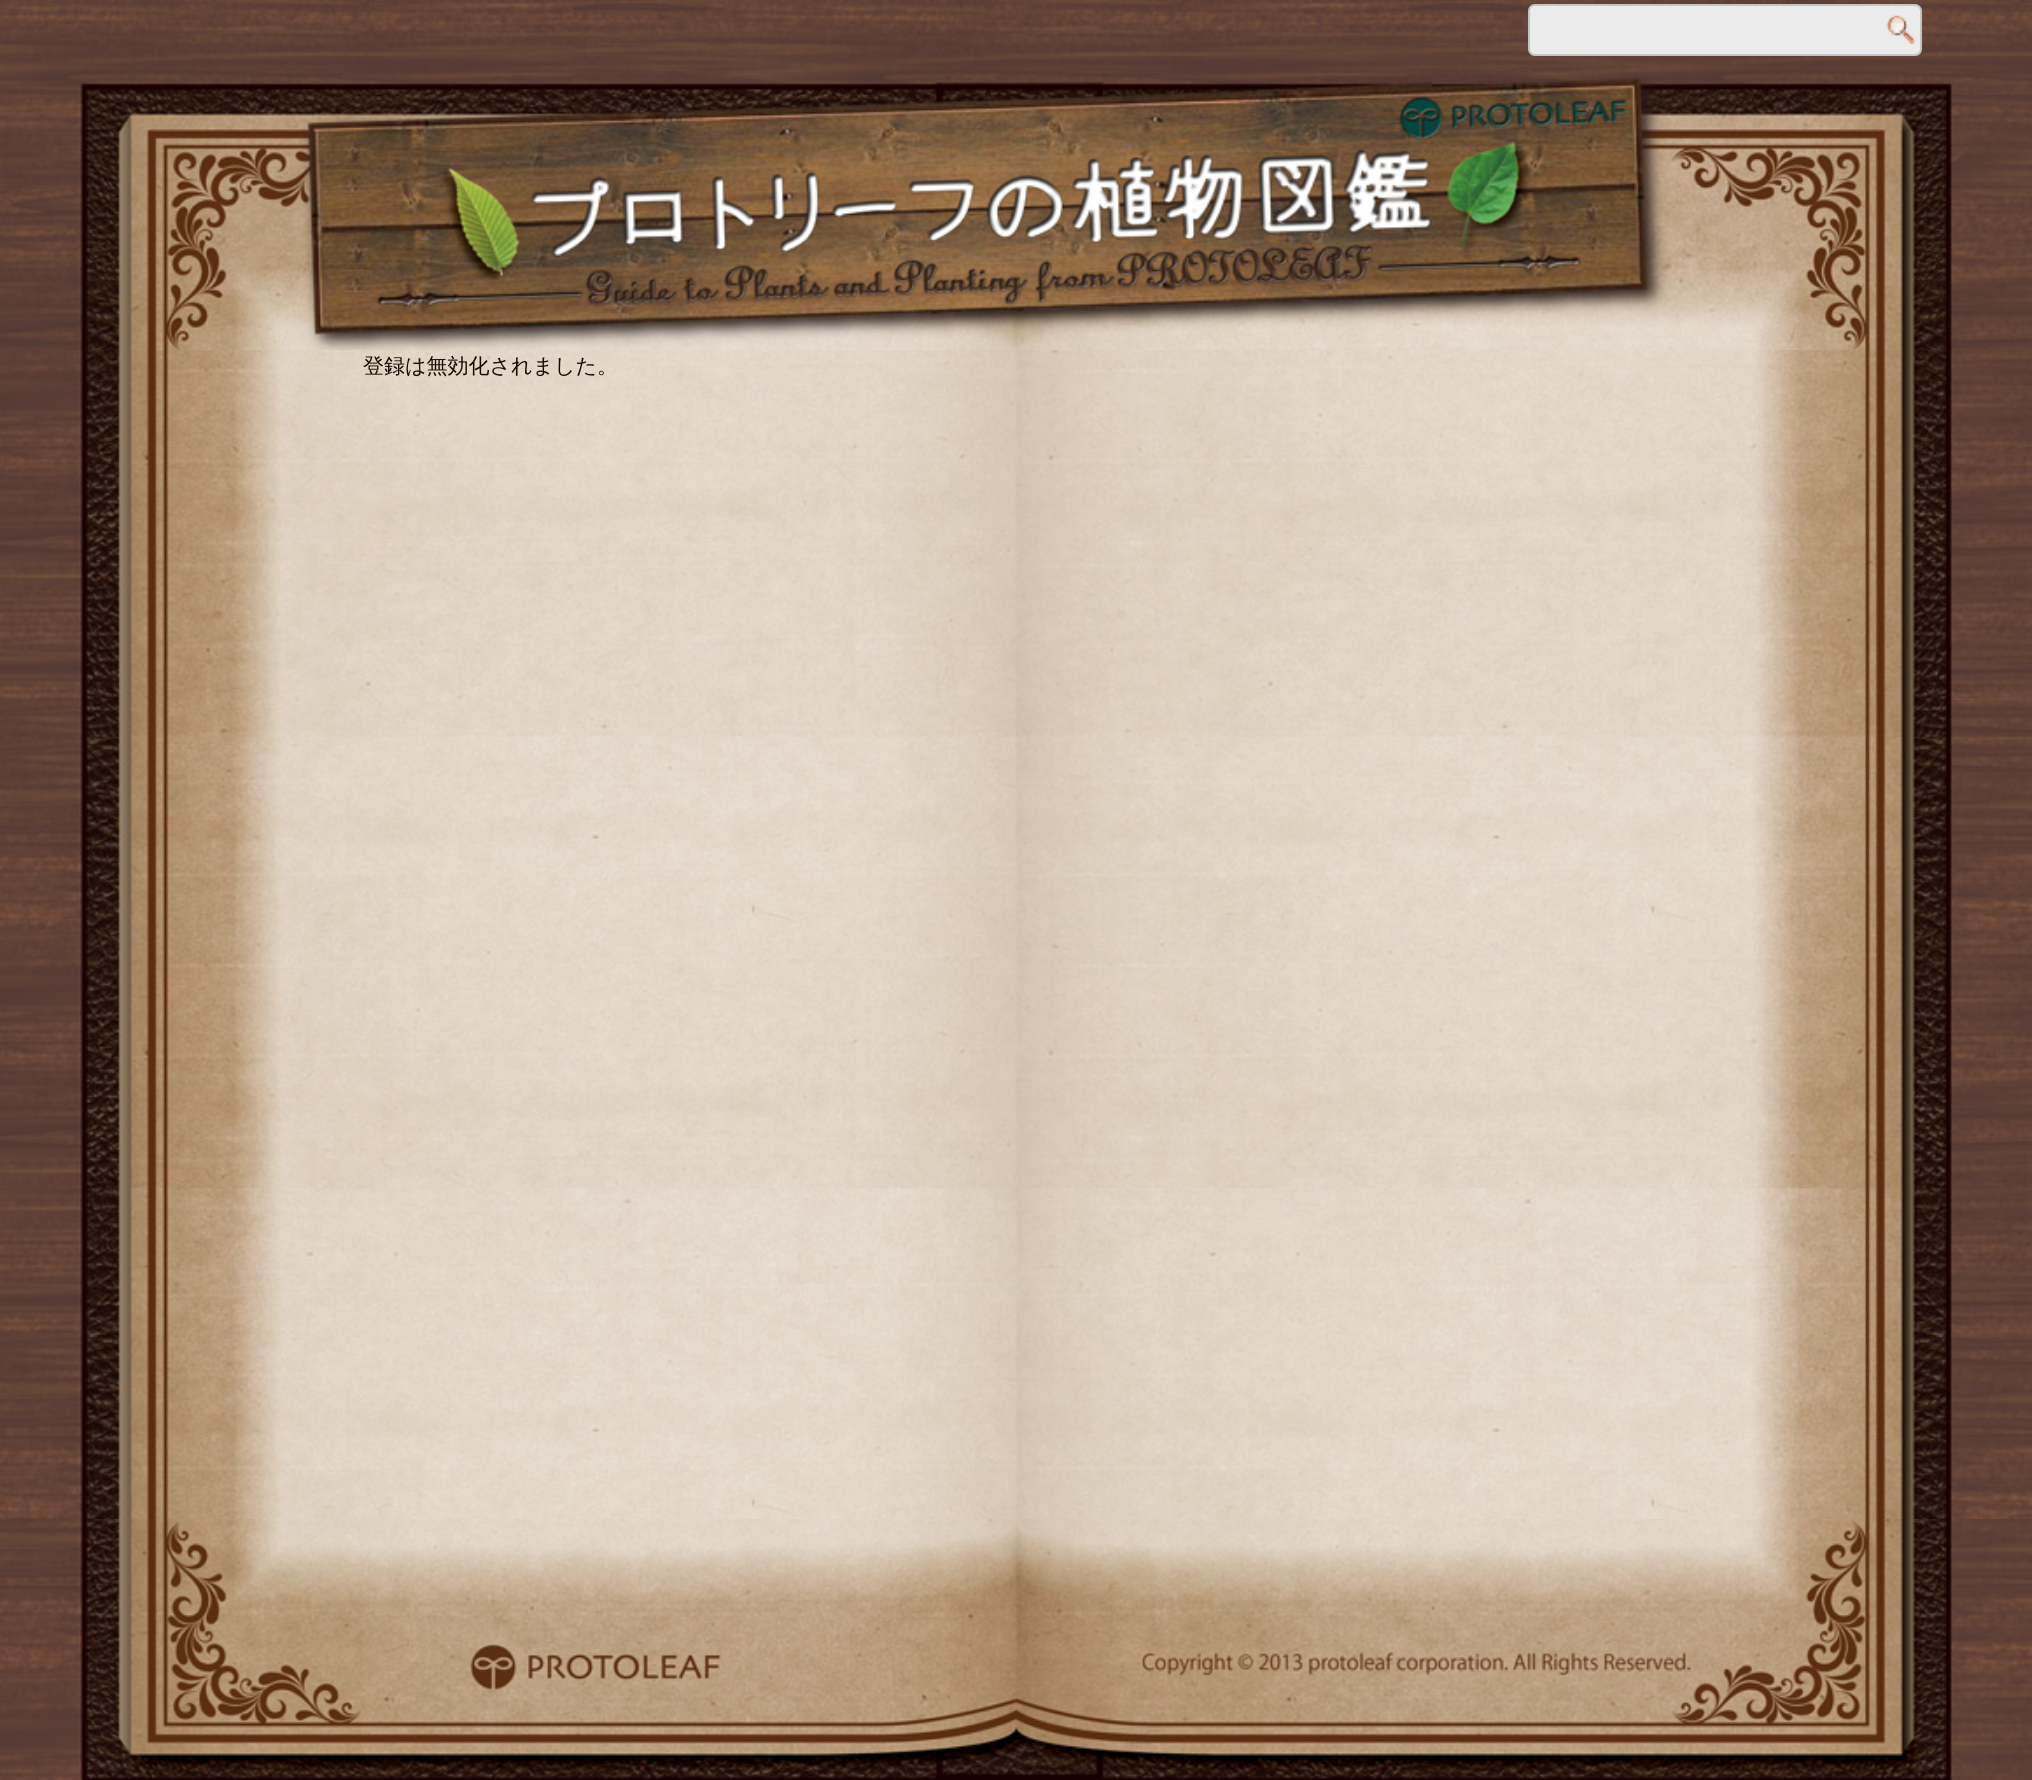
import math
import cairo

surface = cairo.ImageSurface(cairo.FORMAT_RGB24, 2032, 1780)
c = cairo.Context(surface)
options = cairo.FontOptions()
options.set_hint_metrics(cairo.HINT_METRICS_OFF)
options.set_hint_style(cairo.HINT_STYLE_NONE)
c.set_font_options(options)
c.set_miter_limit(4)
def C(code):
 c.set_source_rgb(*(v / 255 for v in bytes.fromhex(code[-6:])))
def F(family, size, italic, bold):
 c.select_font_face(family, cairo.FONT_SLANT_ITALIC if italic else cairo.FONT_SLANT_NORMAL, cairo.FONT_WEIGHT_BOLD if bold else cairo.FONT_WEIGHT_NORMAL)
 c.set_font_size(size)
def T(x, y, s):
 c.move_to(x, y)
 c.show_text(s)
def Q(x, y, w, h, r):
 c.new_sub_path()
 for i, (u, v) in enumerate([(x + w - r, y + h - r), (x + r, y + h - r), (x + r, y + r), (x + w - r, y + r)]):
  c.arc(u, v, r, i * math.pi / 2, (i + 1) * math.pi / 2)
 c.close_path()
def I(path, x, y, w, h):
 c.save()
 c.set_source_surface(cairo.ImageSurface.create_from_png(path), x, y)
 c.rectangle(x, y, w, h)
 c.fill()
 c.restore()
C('ffffff')
c.paint()
I('1.png',0,350,2032,1169)
I('2.png',0,0,2032,350)
C('ebebeb')
Q(1529,5,392,50,6)
c.fill_preserve()
C('c4c4c4')
c.stroke()
I('3.png',1886,15,29,29)
F('WenQuanYi Zen Hei Medium',21,0,0)
C('160a03')
T(363,373,'登録は無効化されました。')
I('4.png',0,1519,2032,261)
surface.write_to_png('o.png')
